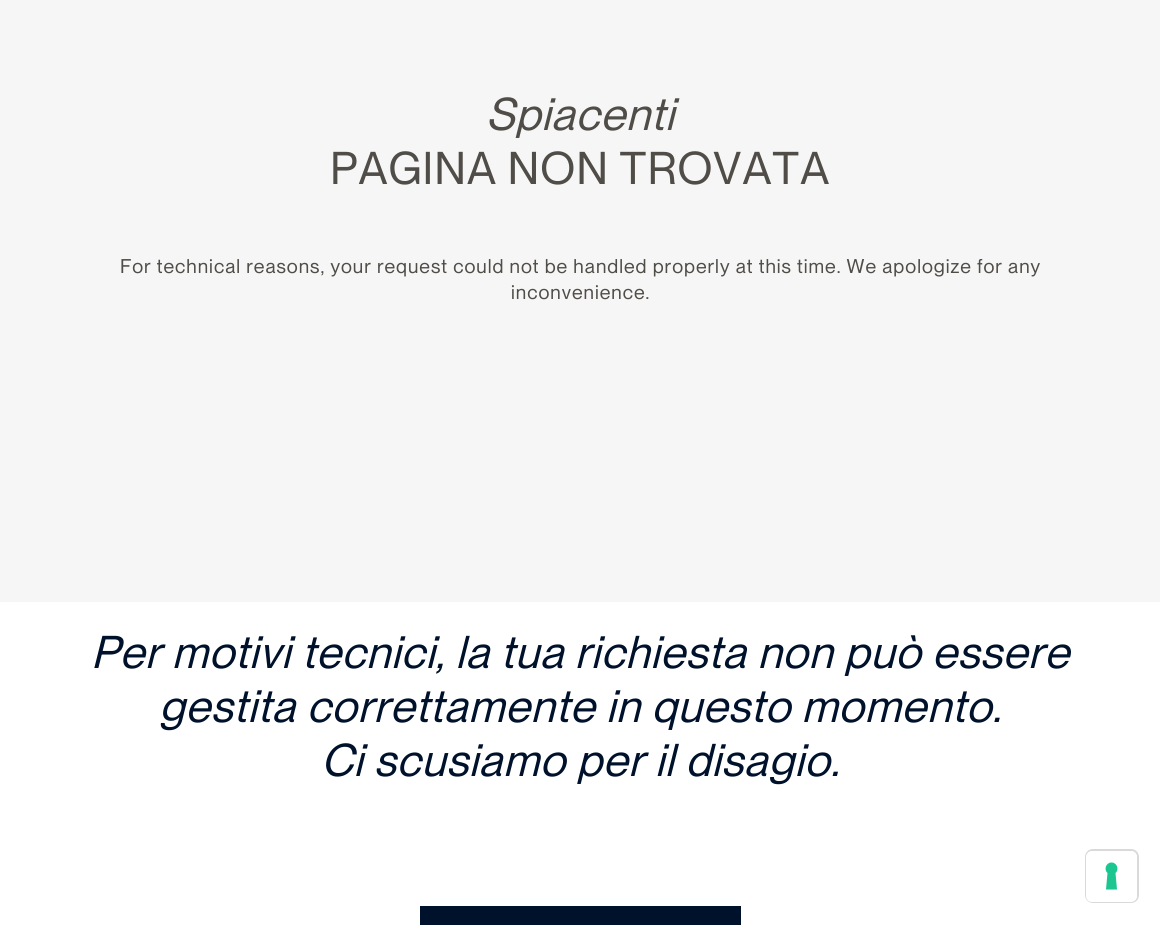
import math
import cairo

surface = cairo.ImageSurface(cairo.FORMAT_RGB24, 1160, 925)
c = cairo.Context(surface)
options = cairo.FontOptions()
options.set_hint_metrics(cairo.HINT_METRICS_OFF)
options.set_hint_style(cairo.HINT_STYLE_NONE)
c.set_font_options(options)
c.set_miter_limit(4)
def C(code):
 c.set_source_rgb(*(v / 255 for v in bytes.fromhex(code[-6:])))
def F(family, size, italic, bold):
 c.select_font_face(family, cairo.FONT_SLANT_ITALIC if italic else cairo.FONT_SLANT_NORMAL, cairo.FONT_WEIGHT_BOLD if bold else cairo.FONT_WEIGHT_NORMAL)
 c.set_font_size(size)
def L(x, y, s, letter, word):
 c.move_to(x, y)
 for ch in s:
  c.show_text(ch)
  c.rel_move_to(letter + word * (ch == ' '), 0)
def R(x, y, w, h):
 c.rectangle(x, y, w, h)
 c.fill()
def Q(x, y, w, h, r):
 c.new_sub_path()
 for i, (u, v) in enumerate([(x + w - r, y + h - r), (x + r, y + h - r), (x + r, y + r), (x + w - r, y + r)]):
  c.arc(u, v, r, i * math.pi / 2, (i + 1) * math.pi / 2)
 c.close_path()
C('ffffff')
c.paint()
C('f6f6f6')
R(0,0,1160,602)
F('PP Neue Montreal',45,1,0)
C('504d48')
L(486,130,'Spiacenti',.98,0)
F('PP Neue Montreal',45,0,0)
L(330,184,'PAGINA NON TROVATA',.98,0)
F('PP Neue Montreal',19.5,0,0)
L(120,273,'For technical reasons, your request could not be handled properly at this time. We apologize for any',.98,0)
L(511,299,'inconvenience.',.98,0)
F('PP Neue Montreal',45,1,0)
C('00112b')
L(91,668,'Per motivi tecnici, la tua richiesta non può essere',.98,0)
L(159,722,'gestita correttamente in questo momento.',.98,0)
L(321,776,'Ci scusiamo per il disagio.',.98,0)
R(420,906,321,19)
Q(1086,850,52,52,7)
C('d9d9d9')
c.stroke()
C('ffffff')
Q(1086,851,51,51,6)
c.fill()
C('1cc691')
c.set_fill_rule(cairo.FILL_RULE_EVEN_ODD)
c.new_path()
c.move_to(1111.5,862.5)
c.curve_to(1117,862.5,1119.5,869.5,1115.5,873)
c.line_to(1117,889.5)
c.line_to(1106,889.5)
c.line_to(1107.5,873)
c.curve_to(1103.5,869.5,1106,862.5,1111.5,862.5)
c.close_path()
c.fill()
surface.write_to_png('o.png')
